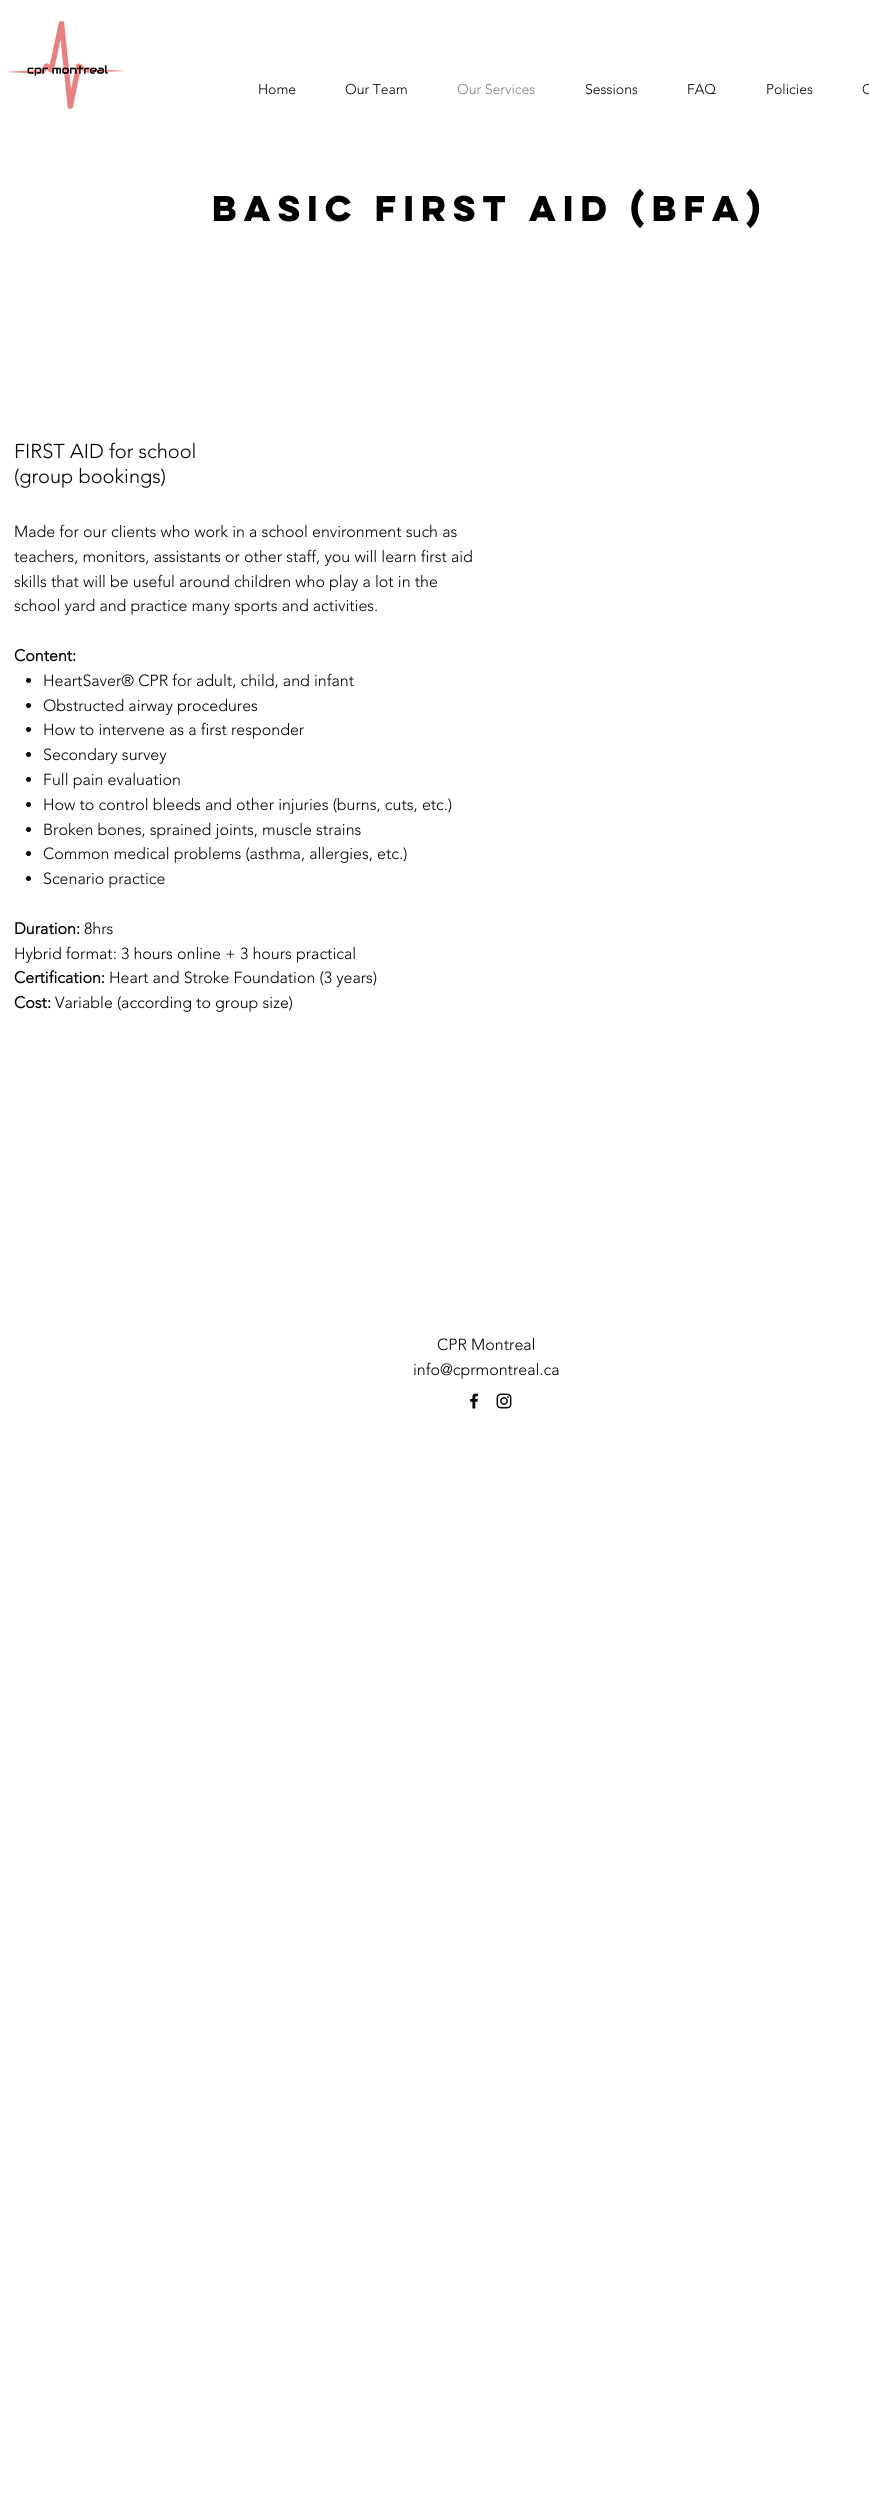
import math
import cairo

surface = cairo.ImageSurface(cairo.FORMAT_RGB24, 869, 2505)
c = cairo.Context(surface)
options = cairo.FontOptions()
options.set_hint_metrics(cairo.HINT_METRICS_OFF)
options.set_hint_style(cairo.HINT_STYLE_NONE)
c.set_font_options(options)
c.set_miter_limit(4)
def C(code):
 c.set_source_rgb(*(v / 255 for v in bytes.fromhex(code[-6:])))
def F(family, size, italic, bold):
 c.select_font_face(family, cairo.FONT_SLANT_ITALIC if italic else cairo.FONT_SLANT_NORMAL, cairo.FONT_WEIGHT_BOLD if bold else cairo.FONT_WEIGHT_NORMAL)
 c.set_font_size(size)
def T(x, y, s):
 c.move_to(x, y)
 c.show_text(s)
def I(path, x, y, w, h):
 c.save()
 c.set_source_surface(cairo.ImageSurface.create_from_png(path), x, y)
 c.rectangle(x, y, w, h)
 c.fill()
 c.restore()
C('ffffff')
c.paint()
I('1.png',8,21,116,88)
F('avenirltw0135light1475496 Light',14,0,0)
C('000000')
T(258,94,'Home')
T(345,94,'Our Team')
C('827a7a')
T(457,94,'Our Services')
C('000000')
T(585,94,'Sessions')
T(687,94,'FAQ')
T(766,94,'Policies')
T(862,94,'C')
F('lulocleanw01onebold',32,0,1)
T(212,221,'basic first aid (BFA)')
F('avenirltw0135light1475496 Light',20,0,0)
T(14,458,'FIRST AID for school')
T(14,483,'(group bookings)')
F('avenirltw0135light1475496 Light',16,0,0)
T(14,537,'Made for our clients who work in a school environment such as')
T(14,562,'teachers, monitors, assistants or other staff, you will learn first aid')
T(14,587,'skills that will be useful around children who play a lot in the')
T(14,611,'school yard and practice many sports and activities.')
F('avenirltw0135light1475496',16,0,1)
T(14,661,'Content:')
c.new_path()
c.arc(28.5,680.5,2.5,0,2 * math.pi)
c.fill()
F('avenirltw0135light1475496 Light',16,0,0)
T(43,686,'HeartSaver® CPR for adult, child, and infant')
c.new_path()
c.arc(28.5,705.5,2.5,0,2 * math.pi)
c.fill()
T(43,711,'Obstructed airway procedures')
c.new_path()
c.arc(28.5,729.5,2.5,0,2 * math.pi)
c.fill()
T(43,735,'How to intervene as a first responder')
c.new_path()
c.arc(28.5,754.5,2.5,0,2 * math.pi)
c.fill()
T(43,760,'Secondary survey')
c.new_path()
c.arc(28.5,779.5,2.5,0,2 * math.pi)
c.fill()
T(43,785,'Full pain evaluation')
c.new_path()
c.arc(28.5,804.5,2.5,0,2 * math.pi)
c.fill()
T(43,810,'How to control bleeds and other injuries (burns, cuts, etc.)')
c.new_path()
c.arc(28.5,829.5,2.5,0,2 * math.pi)
c.fill()
T(43,835,'Broken bones, sprained joints, muscle strains')
c.new_path()
c.arc(28.5,853.5,2.5,0,2 * math.pi)
c.fill()
T(43,859,'Common medical problems (asthma, allergies, etc.)')
c.new_path()
c.arc(28.5,878.5,2.5,0,2 * math.pi)
c.fill()
T(43,884,'Scenario practice')
F('avenirltw0135light1475496',16,0,1)
T(14,934,'Duration:')
F('avenirltw0135light1475496 Light',16,0,0)
T(84,934,'8hrs')
T(14,959,'Hybrid format: 3 hours online + 3 hours practical')
F('avenirltw0135light1475496',16,0,1)
T(14,983,'Certification:')
F('avenirltw0135light1475496 Light',16,0,0)
T(109,983,'Heart and Stroke Foundation (3 years)')
F('avenirltw0135light1475496',16,0,1)
T(14,1008,'Cost:')
F('avenirltw0135light1475496 Light',16,0,0)
T(55,1008,'Variable (according to group size)')
T(437,1350,'CPR Montreal')
T(413,1375,'info@cprmontreal.ca')
I('2.png',470,1393,9,16)
I('3.png',496,1393,16,16)
surface.write_to_png('o.png')
